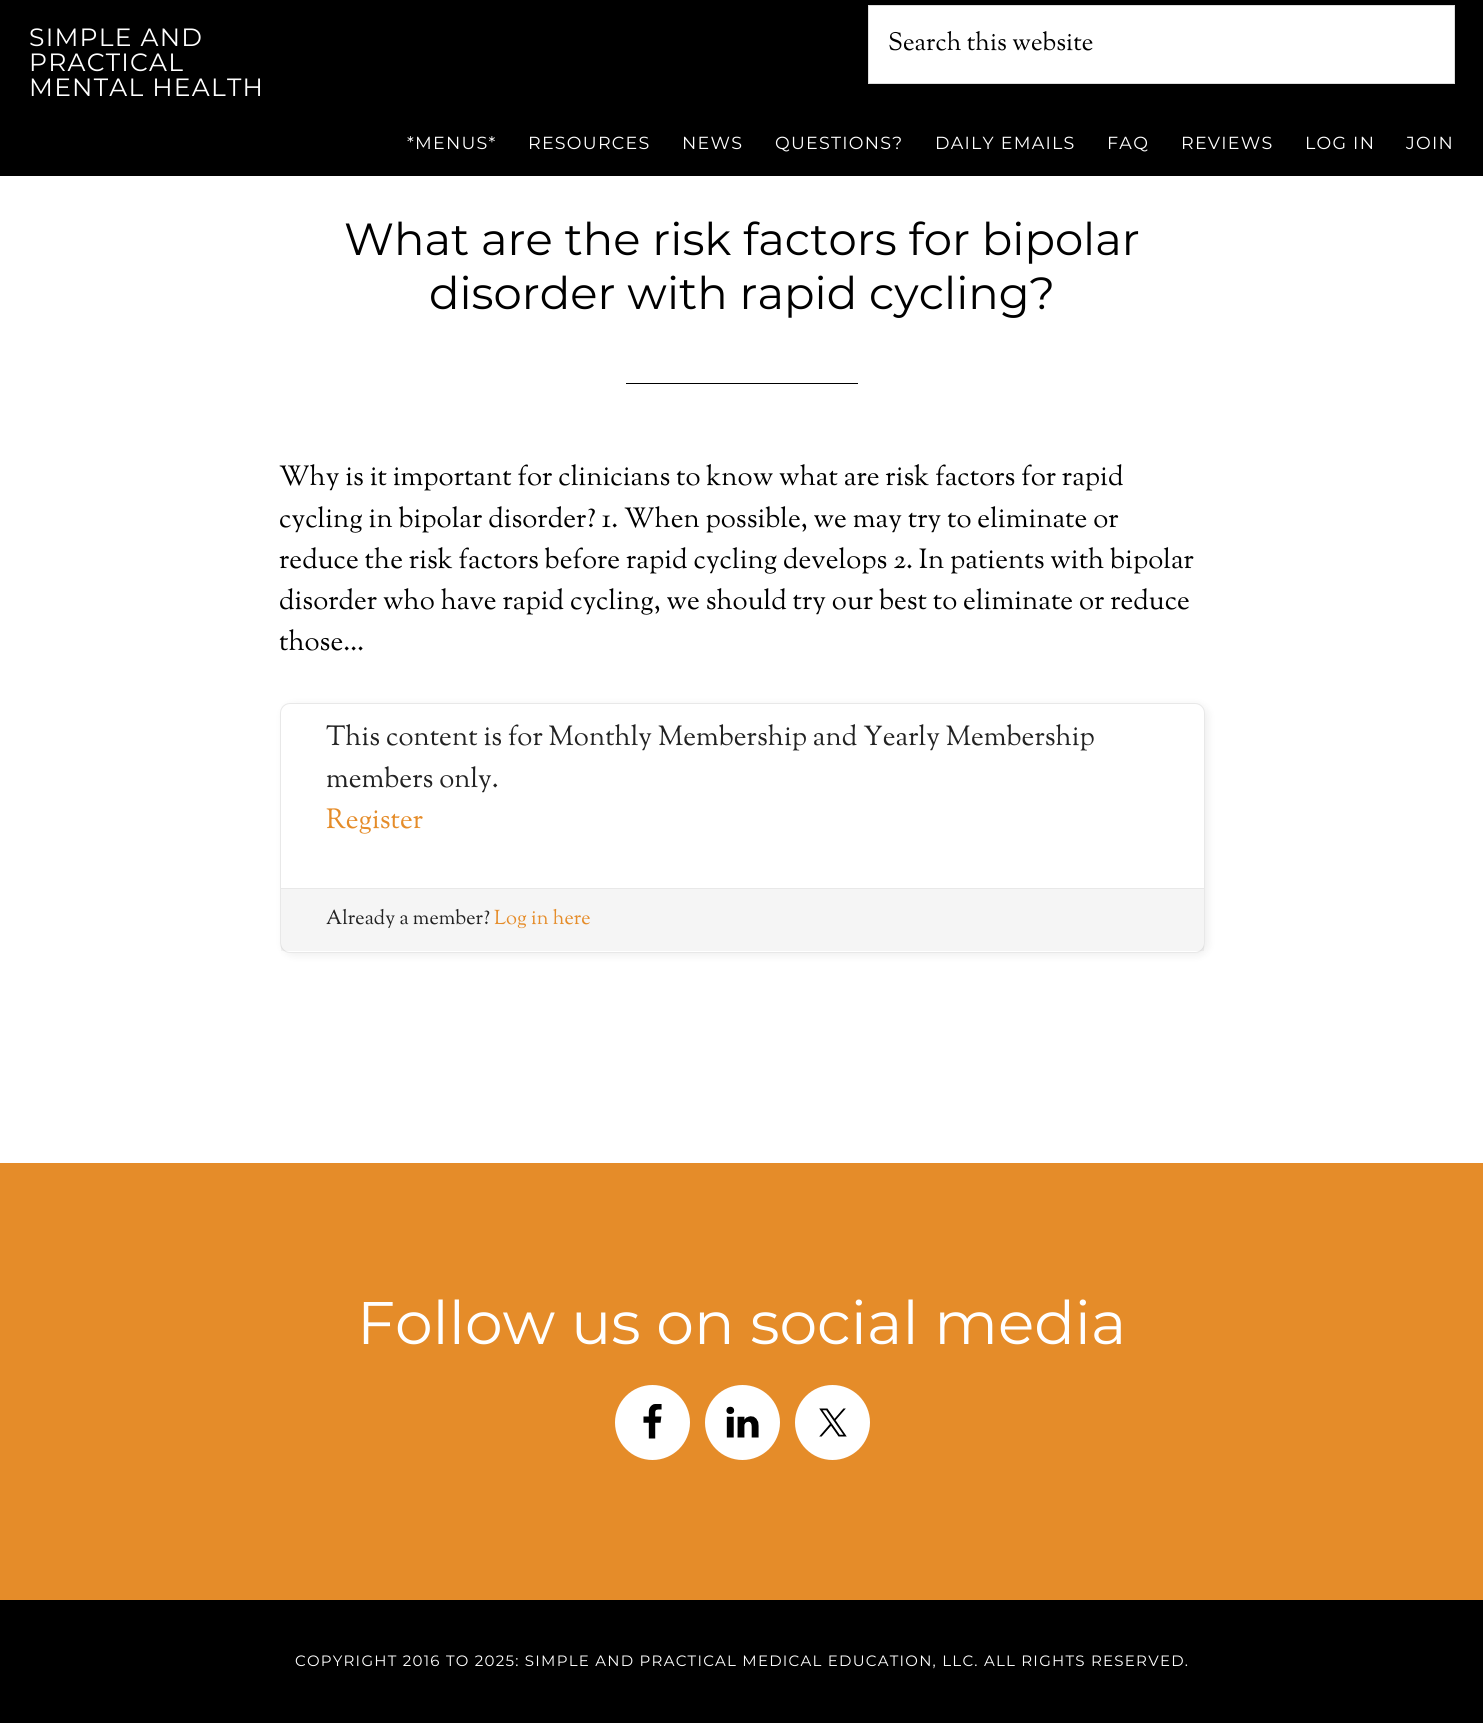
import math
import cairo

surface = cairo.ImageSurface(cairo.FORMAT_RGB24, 1483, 1723)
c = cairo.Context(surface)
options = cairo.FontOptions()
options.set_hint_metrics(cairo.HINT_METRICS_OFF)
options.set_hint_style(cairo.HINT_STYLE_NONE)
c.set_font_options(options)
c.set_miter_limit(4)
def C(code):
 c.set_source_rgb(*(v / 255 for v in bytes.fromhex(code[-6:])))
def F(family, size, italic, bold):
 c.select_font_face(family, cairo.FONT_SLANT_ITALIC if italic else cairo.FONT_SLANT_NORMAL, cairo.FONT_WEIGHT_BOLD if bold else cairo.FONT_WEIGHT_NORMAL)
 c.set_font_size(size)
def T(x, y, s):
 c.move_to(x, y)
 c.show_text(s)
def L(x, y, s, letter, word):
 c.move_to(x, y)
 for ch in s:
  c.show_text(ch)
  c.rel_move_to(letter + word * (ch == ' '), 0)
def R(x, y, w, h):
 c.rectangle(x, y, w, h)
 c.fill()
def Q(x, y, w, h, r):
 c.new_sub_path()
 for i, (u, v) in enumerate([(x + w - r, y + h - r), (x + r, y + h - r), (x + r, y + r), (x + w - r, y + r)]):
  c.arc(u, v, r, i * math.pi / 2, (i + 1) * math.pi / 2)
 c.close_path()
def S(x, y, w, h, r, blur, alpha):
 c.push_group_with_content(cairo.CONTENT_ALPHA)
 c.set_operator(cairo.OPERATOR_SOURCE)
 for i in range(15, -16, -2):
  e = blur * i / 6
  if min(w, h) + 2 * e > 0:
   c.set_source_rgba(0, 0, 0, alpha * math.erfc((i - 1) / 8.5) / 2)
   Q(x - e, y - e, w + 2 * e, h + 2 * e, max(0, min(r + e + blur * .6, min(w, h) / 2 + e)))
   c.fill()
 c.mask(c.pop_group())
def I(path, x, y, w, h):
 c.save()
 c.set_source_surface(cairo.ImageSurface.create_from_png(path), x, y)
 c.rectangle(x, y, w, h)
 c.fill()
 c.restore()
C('ffffff')
c.paint()
C('000000')
R(0,0,1483,176)
F('Montserrat Thin',25,0,0)
C('ffffff')
L(29,46,'SIMPLE AND',1.25,0)
L(29,71,'PRACTICAL',1.25,0)
L(29,96,'MENTAL HEALTH',1.25,0)
c.rectangle(868.5,5.5,586,78)
c.fill_preserve()
C('dddddd')
c.set_line_width(1)
c.stroke()
F('Sorts Mill Goudy',25,0,0)
C('000000')
T(888,50,'Search this website')
F('Montserrat Thin',17.5,0,0)
C('ffffff')
L(407,149,'*MENUS*',1.25,0)
L(528,149,'RESOURCES',1.25,0)
L(682,149,'NEWS',1.25,0)
L(775,149,'QUESTIONS?',1.25,0)
L(935,149,'DAILY EMAILS',1.25,0)
L(1107,149,'FAQ',1.25,0)
L(1181,149,'REVIEWS',1.25,0)
L(1305,149,'LOG IN',1.25,0)
L(1406,149,'JOIN',1.25,0)
F('Montserrat Thin',45,0,0)
C('000000')
T(344,255,'What are the risk factors for bipolar')
T(429,309,'disorder with rapid cycling?')
R(626,383,232,1)
F('Sorts Mill Goudy',27.5,0,0)
T(279,485,'Why is it important for clinicians to know what are risk factors for rapid')
T(279,527,'cycling in bipolar disorder? 1. When possible, we may try to eliminate or')
T(279,568,'reduce the risk factors before rapid cycling develops 2. In patients with bipolar')
T(279,609,'disorder who have rapid cycling, we should try our best to eliminate or reduce')
T(279,650,'those…')
C('000000')
S(283,705,925,250,10,4.5,.07)
C('ffffff')
Q(280.5,703.5,924,249,9.5)
c.fill_preserve()
C('e8e8e8')
c.stroke()
C('222222')
T(326,745,'This content is for Monthly Membership and Yearly Membership')
T(326,787,'members only.')
C('e58c29')
T(326,828,'Register')
c.set_source_rgba(0,0,0,0.04)
R(281,889,923,62)
C('e8e8e8')
R(281,888,923,1)
F('Sorts Mill Goudy',20,0,0)
C('222222')
T(326,924,'Already a member?')
C('e58c29')
T(494,924,'Log in here')
R(0,1163,1483,437)
F('Montserrat Thin',60,0,0)
C('ffffff')
T(357,1344,'Follow us on social media')
c.new_path()
c.arc(652.5,1422.5,37.5,0,2 * math.pi)
c.fill()
I('1.png',643,1404,19,35)
c.arc(742.5,1422.5,37.5,0,2 * math.pi)
c.fill()
I('2.png',726,1406,33,32)
c.arc(832.5,1422.5,37.5,0,2 * math.pi)
c.fill()
I('3.png',819,1408,28,29)
C('000000')
R(0,1600,1483,123)
F('Montserrat Thin',15,0,0)
C('ffffff')
L(295,1666,'COPYRIGHT 2016 TO 2025: SIMPLE AND PRACTICAL MEDICAL EDUCATION, LLC. ALL RIGHTS RESERVED.',1.25,0)
surface.write_to_png('o.png')
